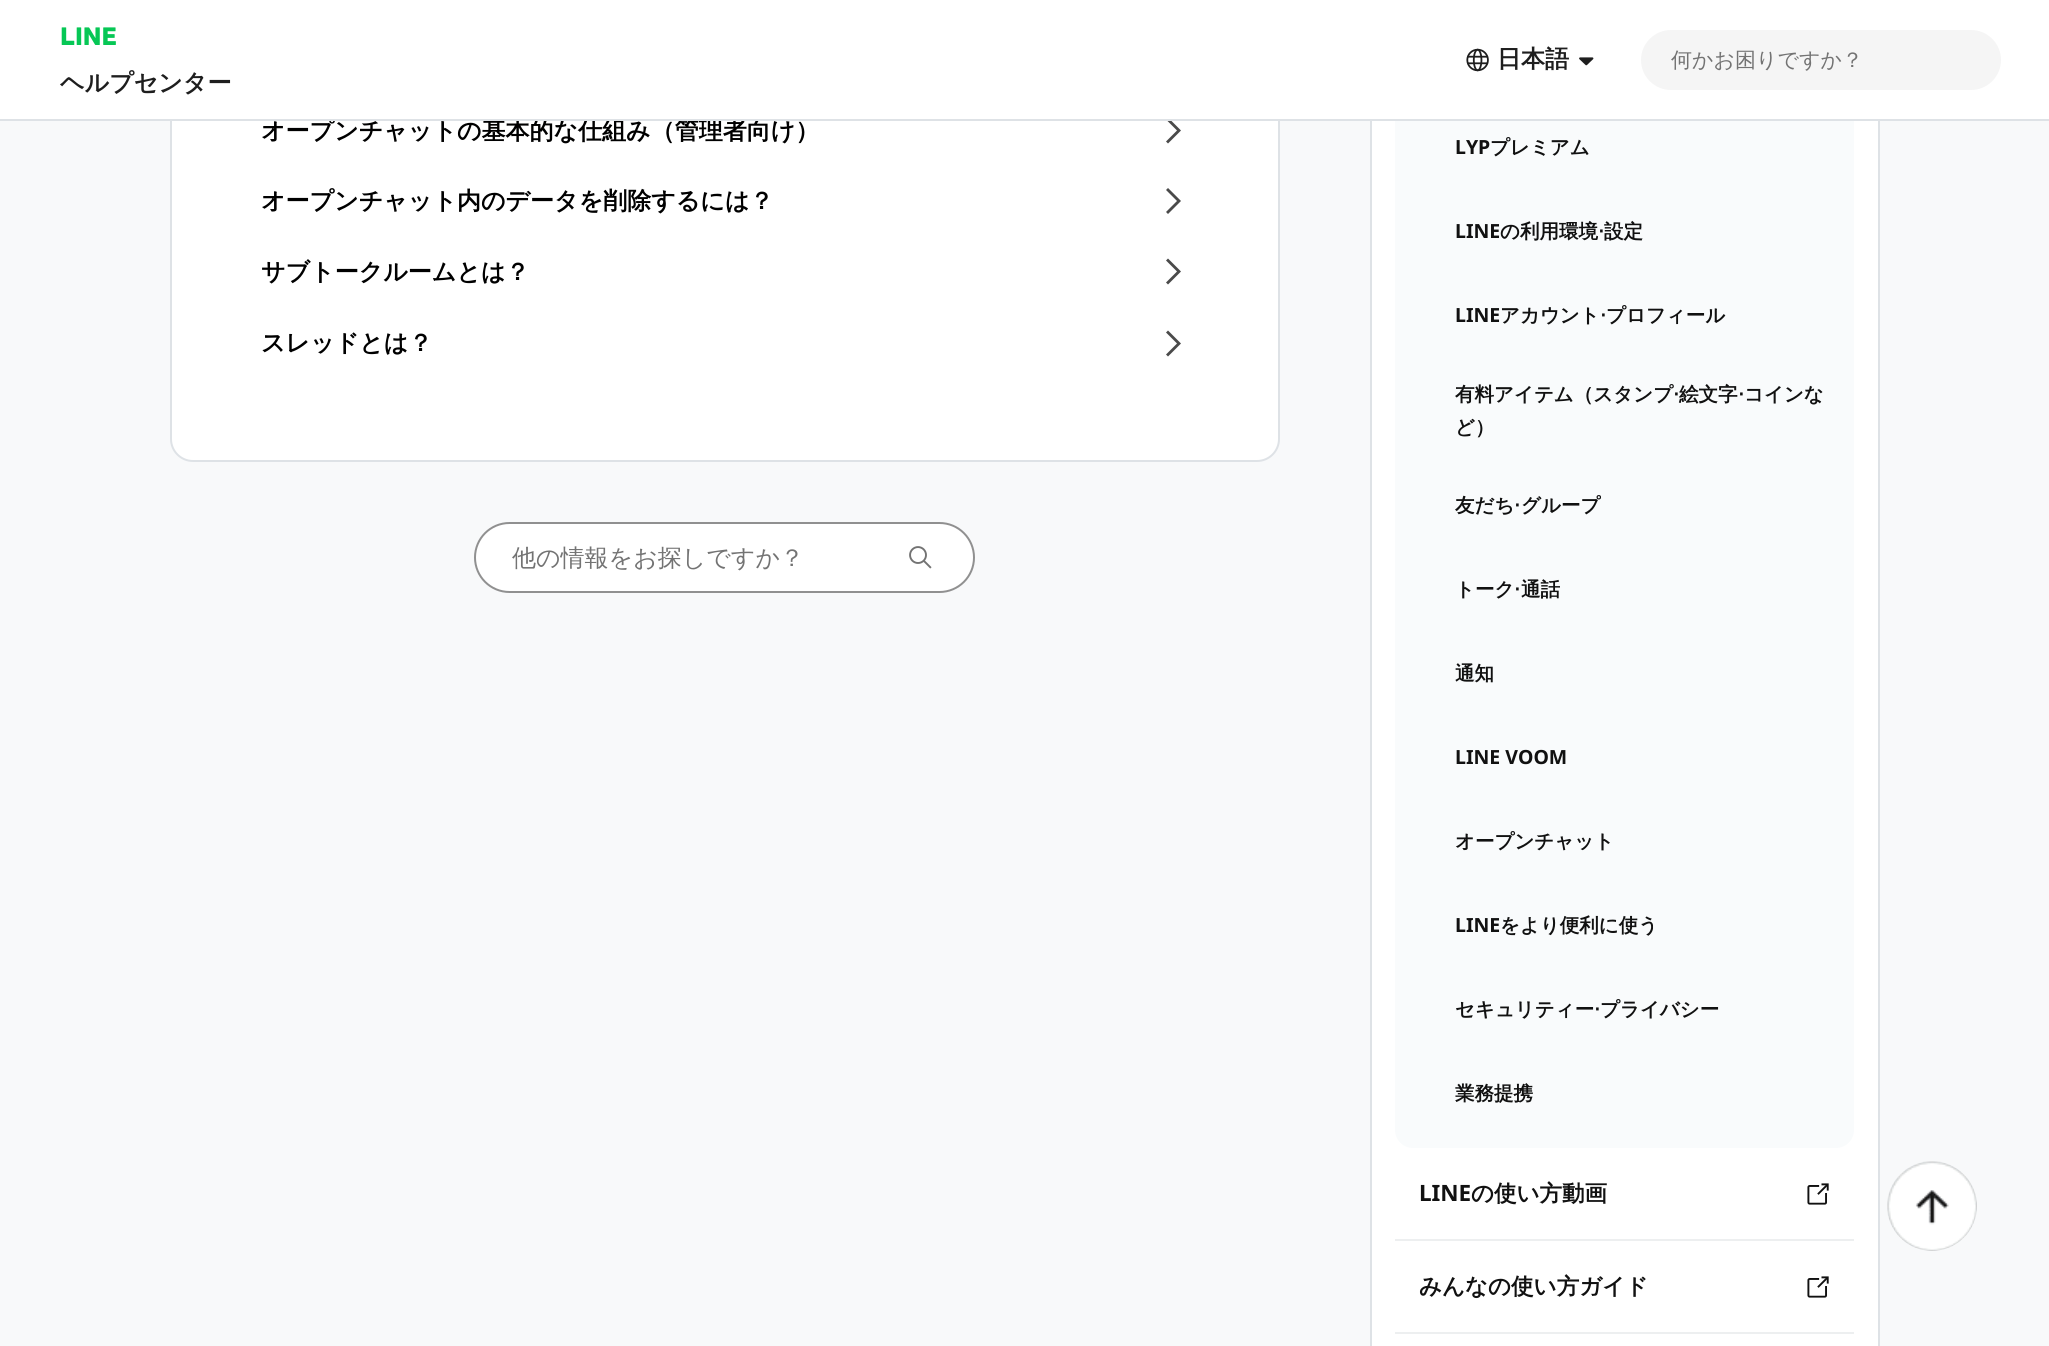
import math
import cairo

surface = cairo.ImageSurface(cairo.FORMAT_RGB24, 2049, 1346)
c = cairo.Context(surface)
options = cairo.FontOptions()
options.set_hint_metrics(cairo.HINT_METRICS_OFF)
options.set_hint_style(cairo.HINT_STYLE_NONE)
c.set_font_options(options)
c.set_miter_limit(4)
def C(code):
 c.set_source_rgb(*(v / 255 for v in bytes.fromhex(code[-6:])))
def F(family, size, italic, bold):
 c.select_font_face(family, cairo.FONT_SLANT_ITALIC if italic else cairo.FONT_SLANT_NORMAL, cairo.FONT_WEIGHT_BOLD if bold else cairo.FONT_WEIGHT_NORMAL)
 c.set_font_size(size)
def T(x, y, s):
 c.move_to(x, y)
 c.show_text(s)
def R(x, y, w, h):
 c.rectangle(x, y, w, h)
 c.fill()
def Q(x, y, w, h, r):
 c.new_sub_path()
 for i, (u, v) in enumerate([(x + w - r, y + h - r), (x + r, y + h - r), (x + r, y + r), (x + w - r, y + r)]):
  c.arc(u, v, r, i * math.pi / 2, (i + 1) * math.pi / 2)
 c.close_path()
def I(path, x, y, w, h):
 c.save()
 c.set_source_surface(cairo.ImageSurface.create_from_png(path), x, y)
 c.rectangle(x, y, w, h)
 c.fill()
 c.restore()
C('f8f9fa')
c.paint()
C('ffffff')
Q(171,-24,1108,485,22)
c.fill_preserve()
C('dee2e6')
c.stroke()
F('WenQuanYi Zen Hei',24,0,1)
C('000000')
T(261,139,'オープンチャットの基本的な仕組み（管理者向け）')
C('4a4a4a')
c.new_path()
c.move_to(1168,117.5)
c.line_to(1181,130.5)
c.line_to(1168,143.5)
c.line_to(1166,141.5)
c.line_to(1177,130.5)
c.line_to(1166,119.5)
c.close_path()
c.fill()
C('ffffff')
R(1372,121,506,1225)
c.rectangle(1371,-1,508,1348)
C('dee2e6')
c.stroke()
C('f9fbfc')
Q(1395,-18,459,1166,18)
c.fill()
C('ffffff')
R(0,0,2049,119)
C('dee2e6')
R(0,119,2049,2)
F('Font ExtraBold',24,0,0)
C('06c755')
T(60,45,'LINE')
F('WenQuanYi Zen Hei',24,0,1)
C('1e1e1e')
T(60,91,'ヘルプセンター')
I('1.png',1466,48,23,24)
T(1497,67,'日本語')
I('2.png',1579,57,15,9)
C('f5f5f5')
Q(1641,30,360,60,30)
c.fill()
F('WenQuanYi Zen Hei Medium',21,0,0)
C('737373')
T(1671,67,'何かお困りですか？')
F('WenQuanYi Zen Hei',24,0,1)
C('000000')
T(261,209,'オープンチャット内のデータを削除するには？')
C('4a4a4a')
c.new_path()
c.move_to(1168,188)
c.line_to(1181,201)
c.line_to(1168,214)
c.line_to(1166,212)
c.line_to(1177,201)
c.line_to(1166,190)
c.close_path()
c.fill()
C('000000')
T(261,280,'サブトークルームとは？')
C('4a4a4a')
c.new_path()
c.move_to(1168,258.5)
c.line_to(1181,271.5)
c.line_to(1168,284.5)
c.line_to(1166,282.5)
c.line_to(1177,271.5)
c.line_to(1166,260.5)
c.close_path()
c.fill()
C('000000')
T(261,351,'スレッドとは？')
C('4a4a4a')
c.new_path()
c.move_to(1168,330.5)
c.line_to(1181,343.5)
c.line_to(1168,356.5)
c.line_to(1166,354.5)
c.line_to(1177,343.5)
c.line_to(1166,332.5)
c.close_path()
c.fill()
C('ffffff')
Q(475,523,499,69,34.5)
c.fill_preserve()
C('909090')
c.stroke()
F('WenQuanYi Zen Hei Medium',24,0,0)
C('737373')
T(512,566,'他の情報をお探しですか？')
I('3.png',909,546,23,23)
F('Noto Sans',19.5,0,1)
C('111111')
T(1455,154,'LYP')
F('WenQuanYi Zen Hei',19.5,0,1)
T(1490,154,'プレミアム')
F('Noto Sans',19.5,0,1)
T(1455,238,'LINE')
F('WenQuanYi Zen Hei',19.5,0,1)
T(1500,238,'の利用環境')
F('DejaVu Sans',19.5,0,1)
T(1598,238,'⋅')
F('WenQuanYi Zen Hei',19.5,0,1)
T(1604,238,'設定')
F('Noto Sans',19.5,0,1)
T(1455,322,'LINE')
F('WenQuanYi Zen Hei',19.5,0,1)
T(1500,322,'アカウント')
F('DejaVu Sans',19.5,0,1)
T(1600,322,'⋅')
F('WenQuanYi Zen Hei',19.5,0,1)
T(1606,322,'プロフィール')
T(1455,401,'有料アイテム（スタンプ')
F('DejaVu Sans',19.5,0,1)
T(1673,401,'⋅')
F('WenQuanYi Zen Hei',19.5,0,1)
T(1679,401,'絵文字')
F('DejaVu Sans',19.5,0,1)
T(1738,401,'⋅')
F('WenQuanYi Zen Hei',19.5,0,1)
T(1744,401,'コインな')
T(1455,434,'ど）')
T(1455,512,'友だち')
F('DejaVu Sans',19.5,0,1)
T(1514,512,'⋅')
F('WenQuanYi Zen Hei',19.5,0,1)
T(1521,512,'グループ')
T(1455,596,'トーク')
F('DejaVu Sans',19.5,0,1)
T(1514,596,'⋅')
F('WenQuanYi Zen Hei',19.5,0,1)
T(1521,596,'通話')
T(1455,680,'通知')
F('Noto Sans',19.5,0,1)
T(1455,764,'LINE VOOM')
F('WenQuanYi Zen Hei',19.5,0,1)
T(1455,848,'オープンチャット')
F('Noto Sans',19.5,0,1)
T(1455,932,'LINE')
F('WenQuanYi Zen Hei',19.5,0,1)
T(1500,932,'をより便利に使う')
T(1455,1016,'セキュリティー')
F('DejaVu Sans',19.5,0,1)
T(1594,1016,'⋅')
F('WenQuanYi Zen Hei',19.5,0,1)
T(1600,1016,'プライバシー')
T(1455,1100,'業務提携')
C('edeff0')
R(1395,1239,459,2)
F('Noto Sans',22.5,0,1)
C('111111')
T(1419,1201,'LINE')
F('WenQuanYi Zen Hei',22.5,0,1)
T(1471,1201,'の使い方動画')
I('4.png',1807,1183,22,22)
C('edeff0')
R(1395,1332,459,2)
C('111111')
T(1419,1294,'みんなの使い方ガイド')
I('4.png',1807,1276,22,22)
I('5.png',1887,1161,90,90)
surface.write_to_png('o.png')
